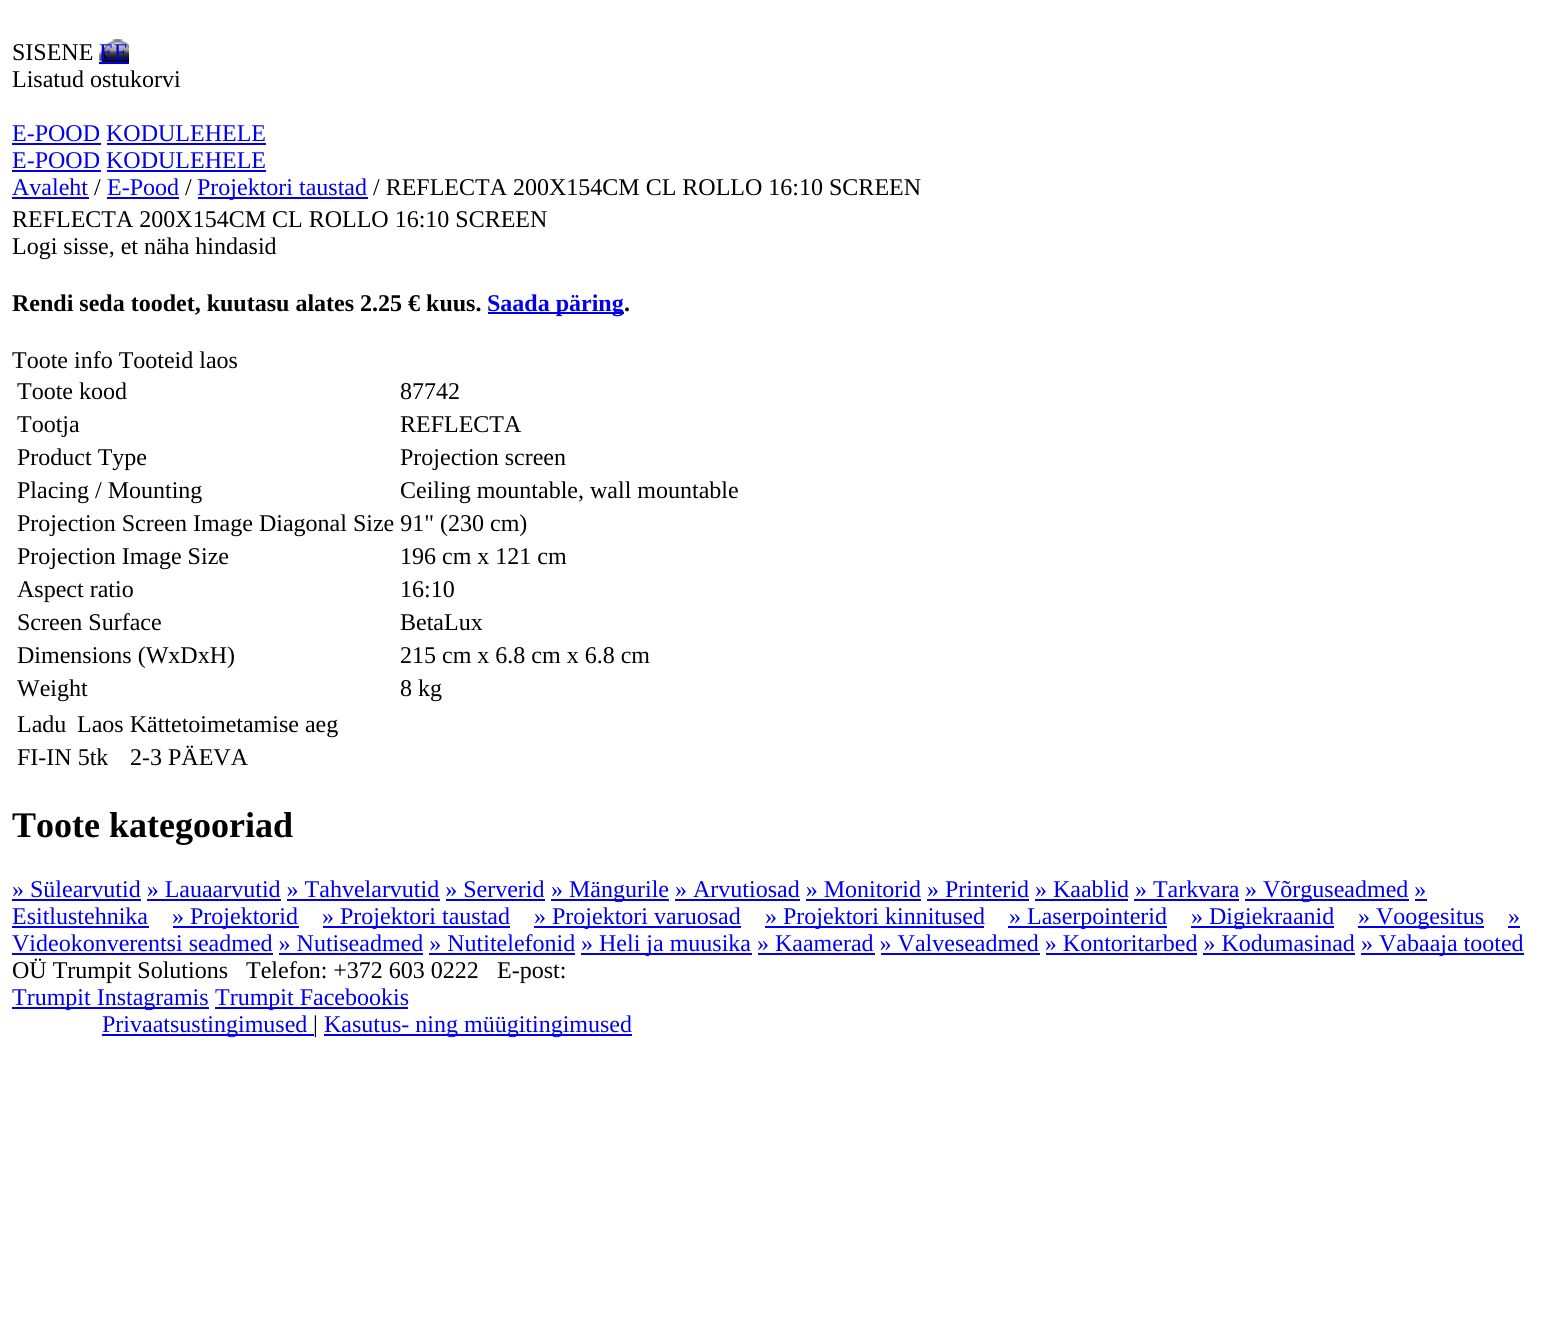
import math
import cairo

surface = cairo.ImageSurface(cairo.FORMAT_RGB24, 1553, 1334)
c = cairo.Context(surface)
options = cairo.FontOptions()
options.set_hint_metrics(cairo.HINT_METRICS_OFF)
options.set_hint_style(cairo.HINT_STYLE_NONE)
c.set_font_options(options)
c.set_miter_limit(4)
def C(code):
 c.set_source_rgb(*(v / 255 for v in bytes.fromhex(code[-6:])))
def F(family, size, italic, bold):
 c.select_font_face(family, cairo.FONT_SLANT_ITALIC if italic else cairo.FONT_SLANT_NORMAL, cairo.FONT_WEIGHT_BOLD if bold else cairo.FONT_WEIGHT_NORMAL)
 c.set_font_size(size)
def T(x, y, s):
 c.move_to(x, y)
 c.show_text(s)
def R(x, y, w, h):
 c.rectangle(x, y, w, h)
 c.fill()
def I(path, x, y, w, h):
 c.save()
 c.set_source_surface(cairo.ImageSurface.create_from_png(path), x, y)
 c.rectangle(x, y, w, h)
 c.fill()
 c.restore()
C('ffffff')
c.paint()
F('Liberation Serif',24,0,0)
C('000000')
T(12,60,'SISENE')
I('1.png',99,39,30,26)
C('0000ee')
T(99,60,'EE')
R(99,62,30,2)
C('000000')
T(12,87,'Lisatud ostukorvi')
C('0000ee')
T(12,141,'E-POOD KODULEHELE')
R(12,143,89,2)
R(107,143,159,2)
T(12,168,'E-POOD KODULEHELE')
R(12,170,89,2)
R(107,170,159,2)
T(12,195,'Avaleht')
R(12,197,77,2)
C('000000')
T(94,195,'/')
C('0000ee')
T(107,195,'E-Pood')
R(107,197,72,2)
C('000000')
T(185,195,'/')
C('0000ee')
R(198,197,170,2)
T(197,195,'Projektori taustad')
C('000000')
T(373,195,'/ REFLECTA 200X154CM CL ROLLO 16:10 SCREEN')
T(12,227,'REFLECTA 200X154CM CL ROLLO 16:10 SCREEN')
T(12,254,'Logi sisse, et näha hindasid')
F('Liberation Serif',24,0,1)
T(12,311,'Rendi seda toodet, kuutasu alates 2.25 € kuus.')
C('0000ee')
R(488,312,136,2)
T(487,311,'Saada päring')
C('000000')
T(624,311,'.')
F('Liberation Serif',24,0,0)
T(12,368,'Toote info Tooteid laos')
T(17,399,'Toote kood')
T(400,399,'87742')
T(17,432,'Tootja')
T(400,432,'REFLECTA')
T(17,465,'Product Type')
T(400,465,'Projection screen')
T(17,498,'Placing / Mounting')
T(400,498,'Ceiling mountable, wall mountable')
T(17,531,'Projection Screen Image Diagonal Size 91" (230 cm)')
T(17,564,'Projection Image Size')
T(400,564,'196 cm x 121 cm')
T(17,597,'Aspect ratio')
T(400,597,'16:10')
T(17,630,'Screen Surface')
T(400,630,'BetaLux')
T(17,663,'Dimensions (WxDxH)')
T(400,663,'215 cm x 6.8 cm x 6.8 cm')
T(17,696,'Weight')
T(400,696,'8 kg')
T(17,732,'Ladu')
T(77,732,'Laos Kättetoimetamise aeg')
T(17,765,'FI-IN 5tk')
T(130,765,'2-3 PÄEVA')
F('Liberation Serif',36,0,1)
T(12,837,'Toote kategooriad')
F('Liberation Serif',24,0,0)
C('0000ee')
T(12,897,'» Sülearvutid » Lauaarvutid » Tahvelarvutid » Serverid')
R(12,899,129,2)
R(551,899,118,2)
T(551,897,'» Mängurile » Arvutiosad » Monitorid » Printerid » Kaablid » Tarkvara')
R(1245,899,164,2)
T(1245,897,'» Võrguseadmed »')
R(147,899,134,2)
R(287,899,153,2)
R(446,899,99,2)
R(675,899,125,2)
R(806,899,115,2)
R(927,899,102,2)
R(1035,899,93,2)
R(1134,899,105,2)
T(12,924,'Esitlustehnika')
R(1415,899,12,2)
R(12,926,137,2)
R(173,926,126,2)
T(172,924,'» Projektorid')
R(323,926,187,2)
T(322,924,'» Projektori taustad')
R(534,926,207,2)
T(534,924,'» Projektori varuosad')
R(765,926,219,2)
T(765,924,'» Projektori kinnitused')
R(1008,926,159,2)
T(1009,924,'» Laserpointerid')
R(1191,926,143,2)
T(1191,924,'» Digiekraanid')
R(1358,926,126,2)
T(1358,924,'» Voogesitus')
T(1508,924,'»')
R(1508,926,12,2)
T(12,951,'Videokonverentsi seadmed » Nutiseadmed » Nutitelefonid')
R(12,953,261,2)
R(581,953,171,2)
T(581,951,'» Heli ja muusika » Kaamerad » Valveseadmed » Kontoritarbed » Kodumasinad')
R(1361,953,163,2)
T(1361,951,'» Vabaaja tooted')
R(279,953,144,2)
R(429,953,146,2)
R(758,953,117,2)
R(881,953,159,2)
R(1046,953,151,2)
R(1203,953,152,2)
C('000000')
T(12,978,'OÜ Trumpit Solutions')
T(246,978,'Telefon: +372 603 0222')
T(497,978,'E-post:')
C('0000ee')
R(12,1007,197,2)
T(12,1005,'Trumpit Instagramis')
R(215,1007,193,2)
T(215,1005,'Trumpit Facebookis')
R(102,1034,212,2)
T(102,1032,'Privaatsustingimused')
C('000000')
T(313,1032,'|')
C('0000ee')
R(324,1034,308,2)
T(324,1032,'Kasutus- ning müügitingimused')
surface.write_to_png('o.png')
